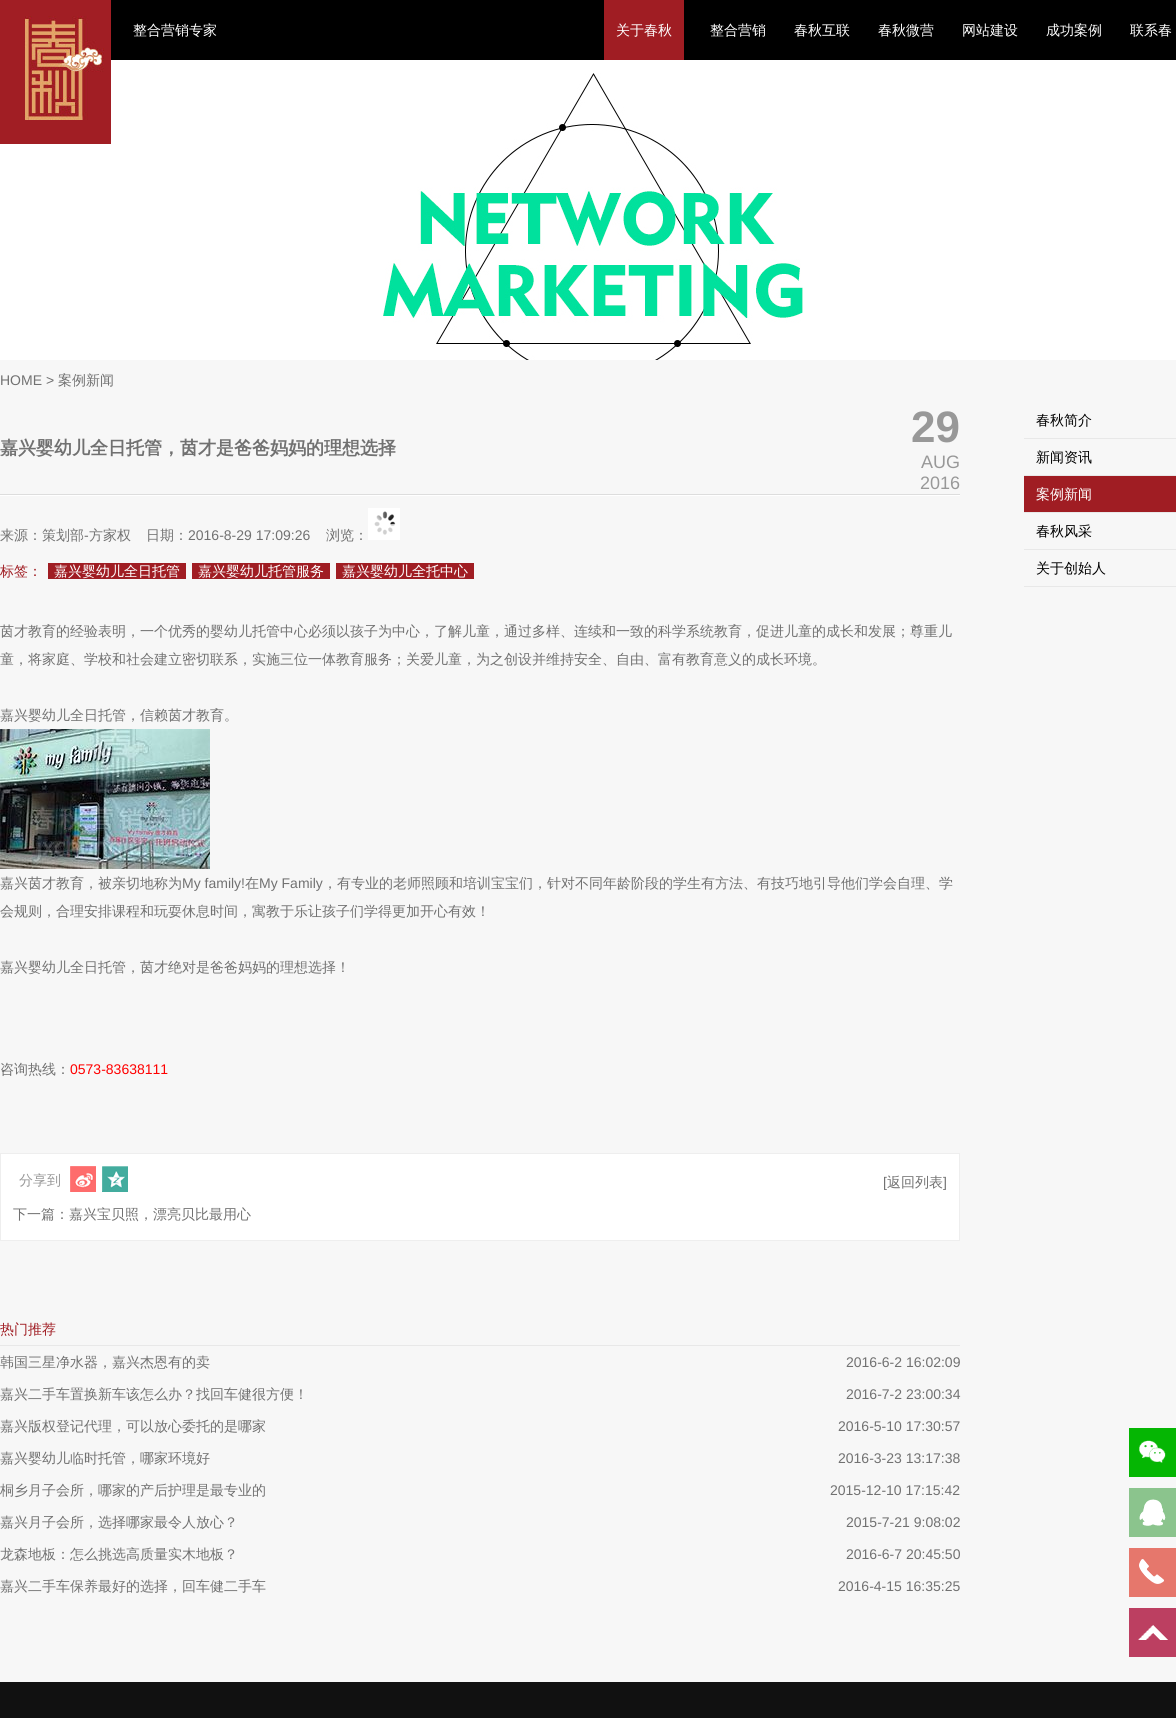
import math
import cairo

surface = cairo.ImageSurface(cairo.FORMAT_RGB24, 1176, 1718)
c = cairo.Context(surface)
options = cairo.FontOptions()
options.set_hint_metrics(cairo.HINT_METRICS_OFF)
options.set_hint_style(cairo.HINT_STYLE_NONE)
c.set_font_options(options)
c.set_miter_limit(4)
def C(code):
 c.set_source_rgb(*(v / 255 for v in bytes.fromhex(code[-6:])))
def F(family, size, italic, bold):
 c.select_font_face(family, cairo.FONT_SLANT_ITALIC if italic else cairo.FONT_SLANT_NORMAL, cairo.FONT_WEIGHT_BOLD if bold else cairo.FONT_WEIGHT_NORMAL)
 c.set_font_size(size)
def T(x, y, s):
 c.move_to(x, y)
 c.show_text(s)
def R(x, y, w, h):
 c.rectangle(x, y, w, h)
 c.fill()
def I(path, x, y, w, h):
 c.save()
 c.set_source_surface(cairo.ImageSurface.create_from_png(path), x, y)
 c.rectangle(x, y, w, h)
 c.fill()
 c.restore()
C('f7f7f7')
c.paint()
C('000000')
R(111,0,1065,60)
C('ffffff')
R(0,60,1176,300)
I('1.png',0,0,111,144)
F('WenQuanYi Zen Hei Medium',14,0,0)
T(133,35,'整合营销专家')
C('a01d23')
R(604,0,80,60)
C('ffffff')
T(616,35,'关于春秋')
T(710,35,'整合营销')
T(794,35,'春秋互联')
T(878,35,'春秋微营')
T(962,35,'网站建设')
T(1046,35,'成功案例')
T(1130,35,'联系春')
I('2.png',383,73,420,287)
F('Liberation Sans',14,0,0)
C('717171')
T(0,385,'HOME >')
F('WenQuanYi Zen Hei Medium',14,0,0)
T(58,385,'案例新闻')
F('WenQuanYi Zen Hei',18,0,1)
T(0,454,'嘉兴婴幼儿全日托管，茵才是爸爸妈妈的理想选择')
F('Liberation Sans',44,0,1)
C('989898')
T(911,442,'29')
F('Liberation Sans',18,0,0)
T(921,468,'AUG')
T(920,489,'2016')
C('dddddd')
R(0,494,960,1)
C('ffffff')
R(0,495,960,1)
F('WenQuanYi Zen Hei Medium',14,0,0)
C('717171')
T(0,540,'来源：策划部')
F('Liberation Sans',14,0,0)
T(84,540,'-')
F('WenQuanYi Zen Hei Medium',14,0,0)
T(89,540,'方家权')
T(146,540,'日期：')
F('Liberation Sans',14,0,0)
T(188,540,'2016-8-29 17:09:26')
F('WenQuanYi Zen Hei Medium',14,0,0)
T(326,540,'浏览：')
I('3.png',368,508,32,32)
C('a01d23')
T(0,576,'标签：')
R(48,563,138,16)
C('ffffff')
T(54,576,'嘉兴婴幼儿全日托管')
C('a01d23')
R(192,563,138,16)
C('ffffff')
T(198,576,'嘉兴婴幼儿托管服务')
C('a01d23')
R(336,563,138,16)
C('ffffff')
T(342,576,'嘉兴婴幼儿全托中心')
C('717171')
T(0,636,'茵才教育的经验表明，一个优秀的婴幼儿托管中心必须以孩子为中心，了解儿童，通过多样、连续和一致的科学系统教育，促进儿童的成长和发展；尊重儿')
T(0,664,'童，将家庭、学校和社会建立密切联系，实施三位一体教育服务；关爱儿童，为之创设并维持安全、自由、富有教育意义的成长环境。')
T(0,720,'嘉兴婴幼儿全日托管，信赖茵才教育。')
I('4.png',0,729,210,140)
T(0,888,'嘉兴茵才教育，被亲切地称为')
F('Liberation Sans',14,0,0)
T(182,888,'My family!')
F('WenQuanYi Zen Hei Medium',14,0,0)
T(245,888,'在')
F('Liberation Sans',14,0,0)
T(259,888,'My Family')
F('WenQuanYi Zen Hei Medium',14,0,0)
T(323,888,'，有专业的老师照顾和培训宝宝们，针对不同年龄阶段的学生有方法、有技巧地引导他们学会自理、学')
T(0,916,'会规则，合理安排课程和玩耍休息时间，寓教于乐让孩子们学得更加开心有效！')
T(0,972,'嘉兴婴幼儿全日托管，茵才绝对是爸爸妈妈的理想选择！')
T(0,1074,'咨询热线：')
F('Liberation Sans',14,0,0)
C('ff0000')
T(70,1074,'0573-83638111')
C('ffffff')
c.rectangle(.5,1153.5,959,87)
c.fill_preserve()
C('eeeeee')
c.set_line_width(1)
c.stroke()
F('WenQuanYi Zen Hei Medium',14,0,0)
C('989898')
T(19,1185,'分享到')
I('5.png',70,1166,26,26)
I('6.png',102,1166,26,26)
F('Liberation Sans',14,0,0)
C('717171')
T(883,1187,'[')
F('WenQuanYi Zen Hei Medium',14,0,0)
T(887,1187,'返回列表')
F('Liberation Sans',14,0,0)
T(943,1187,']')
F('WenQuanYi Zen Hei Medium',14,0,0)
T(13,1219,'下一篇：嘉兴宝贝照，漂亮贝比最用心')
C('e8e8e8')
R(0,1345,960,1)
C('a01d23')
T(0,1334,'热门推荐')
C('717171')
T(0,1367,'韩国三星净水器，嘉兴杰恩有的卖')
F('Liberation Sans',14,0,0)
T(846,1367,'2016-6-2 16:02:09')
F('WenQuanYi Zen Hei Medium',14,0,0)
T(0,1399,'嘉兴二手车置换新车该怎么办？找回车健很方便！')
F('Liberation Sans',14,0,0)
T(846,1399,'2016-7-2 23:00:34')
F('WenQuanYi Zen Hei Medium',14,0,0)
T(0,1431,'嘉兴版权登记代理，可以放心委托的是哪家')
F('Liberation Sans',14,0,0)
T(838,1431,'2016-5-10 17:30:57')
F('WenQuanYi Zen Hei Medium',14,0,0)
T(0,1463,'嘉兴婴幼儿临时托管，哪家环境好')
F('Liberation Sans',14,0,0)
T(838,1463,'2016-3-23 13:17:38')
F('WenQuanYi Zen Hei Medium',14,0,0)
T(0,1495,'桐乡月子会所，哪家的产后护理是最专业的')
F('Liberation Sans',14,0,0)
T(830,1495,'2015-12-10 17:15:42')
F('WenQuanYi Zen Hei Medium',14,0,0)
T(0,1527,'嘉兴月子会所，选择哪家最令人放心？')
F('Liberation Sans',14,0,0)
T(846,1527,'2015-7-21 9:08:02')
F('WenQuanYi Zen Hei Medium',14,0,0)
T(0,1559,'龙森地板：怎么挑选高质量实木地板？')
F('Liberation Sans',14,0,0)
T(846,1559,'2016-6-7 20:45:50')
F('WenQuanYi Zen Hei Medium',14,0,0)
T(0,1591,'嘉兴二手车保养最好的选择，回车健二手车')
F('Liberation Sans',14,0,0)
T(838,1591,'2016-4-15 16:35:25')
C('e8e8e8')
R(1024,438,152,1)
F('WenQuanYi Zen Hei Medium',14,0,0)
C('000000')
T(1036,425,'春秋简介')
C('e8e8e8')
R(1024,475,152,1)
C('000000')
T(1036,462,'新闻资讯')
C('e8e8e8')
R(1024,512,152,1)
C('a01d23')
R(1024,476,152,36)
C('ffffff')
T(1036,499,'案例新闻')
C('e8e8e8')
R(1024,549,152,1)
C('000000')
T(1036,536,'春秋风采')
C('e8e8e8')
R(1024,586,152,1)
C('000000')
T(1036,573,'关于创始人')
C('05b603')
R(1129,1428,47,49)
I('7.png',1139,1440,27,23)
I('8.png',1129,1488,47,49)
I('9.png',1129,1548,47,49)
I('10.png',1129,1608,47,49)
C('111111')
R(0,1682,1176,36)
surface.write_to_png('o.png')
